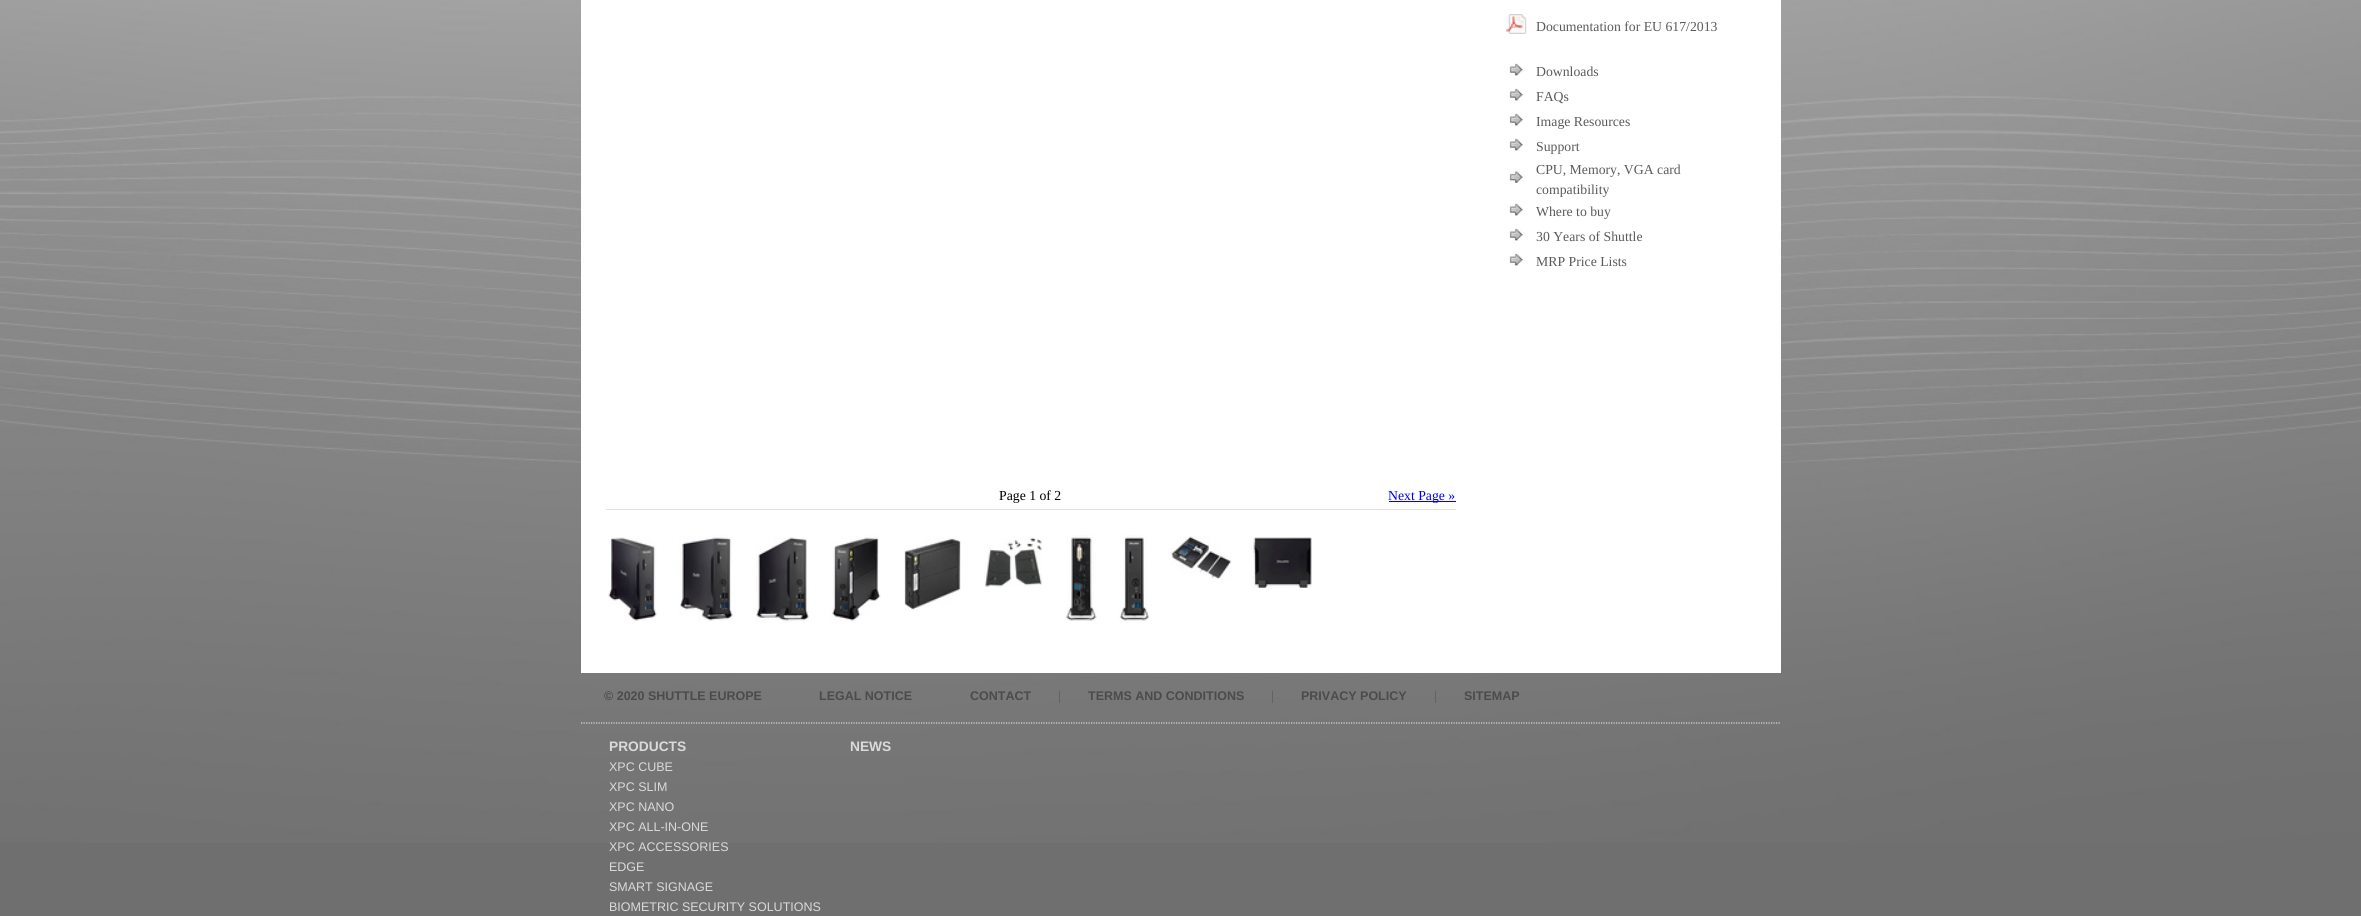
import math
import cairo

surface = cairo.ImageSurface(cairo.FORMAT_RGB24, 2361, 916)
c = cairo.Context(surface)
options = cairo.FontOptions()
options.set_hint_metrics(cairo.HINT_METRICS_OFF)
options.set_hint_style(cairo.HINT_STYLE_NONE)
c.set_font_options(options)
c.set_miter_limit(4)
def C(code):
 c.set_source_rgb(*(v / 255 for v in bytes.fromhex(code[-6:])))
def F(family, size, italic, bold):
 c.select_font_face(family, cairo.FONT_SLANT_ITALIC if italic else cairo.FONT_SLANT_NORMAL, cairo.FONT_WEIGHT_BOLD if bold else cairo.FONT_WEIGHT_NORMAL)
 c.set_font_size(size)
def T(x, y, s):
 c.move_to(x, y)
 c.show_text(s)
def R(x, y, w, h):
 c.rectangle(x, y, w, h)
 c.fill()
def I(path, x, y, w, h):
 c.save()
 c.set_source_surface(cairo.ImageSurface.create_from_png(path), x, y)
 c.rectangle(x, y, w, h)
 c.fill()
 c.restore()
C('6f6f6f')
c.paint()
I('1.png',0,0,2361,843)
C('ffffff')
R(581,0,1200,673)
I('2.png',1506,14,21,20)
F('Liberation Serif',13.75,0,0)
C('5a5a5a')
T(1536,31,'Documentation for EU 617/2013')
I('3.png',1509,63,14,13)
T(1536,76,'Downloads')
I('3.png',1509,88,14,13)
T(1536,101,'FAQs')
I('3.png',1509,113,14,13)
T(1536,126,'Image Resources')
I('3.png',1509,138,14,13)
T(1536,151,'Support')
I('4.png',1509,169,16,15)
T(1536,174,'CPU, Memory, VGA card')
T(1536,194,'compatibility')
I('3.png',1509,203,14,13)
T(1536,216,'Where to buy')
I('3.png',1509,228,14,13)
T(1536,241,'30 Years of Shuttle')
I('5.png',1509,253,14,13)
T(1536,266,'MRP Price Lists')
C('dde1e4')
R(606,509,850,1)
C('000000')
T(999,500,'Page 1 of 2')
C('0000ee')
R(1389,501,67,1)
T(1388,500,'Next Page »')
I('6.png',608,537,49,84)
I('7.png',679,535,54,86)
I('8.png',756,537,53,86)
I('9.png',830,535,51,88)
I('10.png',904,538,57,72)
I('11.png',984,537,59,50)
I('12.png',1066,535,31,86)
I('13.png',1119,535,30,86)
I('14.png',1170,536,62,44)
I('15.png',1251,537,61,51)
c.new_path()
c.move_to(581,723)
c.line_to(1781,723)
C('dadada')
c.set_line_width(1.2)
c.set_dash([1.25,1.25])
c.stroke()
F('Liberation Sans',12.5,0,1)
C('4b4b4b')
T(604,700,'© 2020 SHUTTLE EUROPE')
T(819,700,'LEGAL NOTICE')
T(970,700,'CONTACT')
F('Liberation Serif',13.75,0,0)
C('5a5a5a')
T(1058,700,'|')
F('Liberation Sans',12.5,0,1)
C('4b4b4b')
T(1088,700,'TERMS AND CONDITIONS')
F('Liberation Serif',13.75,0,0)
C('5a5a5a')
T(1271,700,'|')
F('Liberation Sans',12.5,0,1)
C('4b4b4b')
T(1301,700,'PRIVACY POLICY')
F('Liberation Serif',13.75,0,0)
C('5a5a5a')
T(1434,700,'|')
F('Liberation Sans',12.5,0,1)
C('4b4b4b')
T(1464,700,'SITEMAP')
F('Liberation Sans',13.75,0,1)
C('dadada')
T(609,751,'PRODUCTS')
F('Liberation Sans',12.5,0,0)
T(609,771,'XPC CUBE')
T(609,791,'XPC SLIM')
T(609,811,'XPC NANO')
T(609,831,'XPC ALL-IN-ONE')
T(609,851,'XPC ACCESSORIES')
T(609,871,'EDGE')
T(609,891,'SMART SIGNAGE')
T(609,911,'BIOMETRIC SECURITY SOLUTIONS')
F('Liberation Sans',13.75,0,1)
T(850,751,'NEWS')
surface.write_to_png('o.png')
